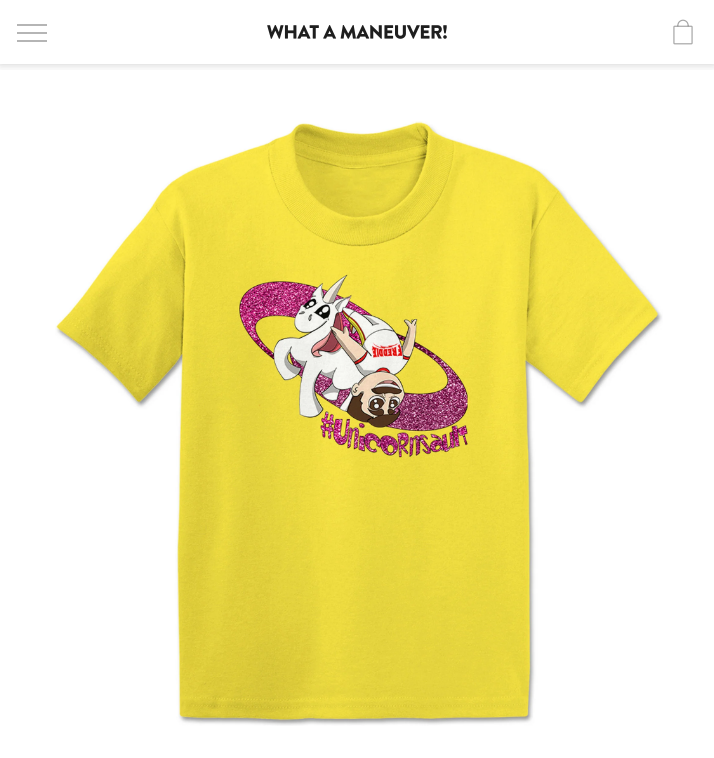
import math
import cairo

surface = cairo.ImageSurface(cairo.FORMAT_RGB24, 714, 758)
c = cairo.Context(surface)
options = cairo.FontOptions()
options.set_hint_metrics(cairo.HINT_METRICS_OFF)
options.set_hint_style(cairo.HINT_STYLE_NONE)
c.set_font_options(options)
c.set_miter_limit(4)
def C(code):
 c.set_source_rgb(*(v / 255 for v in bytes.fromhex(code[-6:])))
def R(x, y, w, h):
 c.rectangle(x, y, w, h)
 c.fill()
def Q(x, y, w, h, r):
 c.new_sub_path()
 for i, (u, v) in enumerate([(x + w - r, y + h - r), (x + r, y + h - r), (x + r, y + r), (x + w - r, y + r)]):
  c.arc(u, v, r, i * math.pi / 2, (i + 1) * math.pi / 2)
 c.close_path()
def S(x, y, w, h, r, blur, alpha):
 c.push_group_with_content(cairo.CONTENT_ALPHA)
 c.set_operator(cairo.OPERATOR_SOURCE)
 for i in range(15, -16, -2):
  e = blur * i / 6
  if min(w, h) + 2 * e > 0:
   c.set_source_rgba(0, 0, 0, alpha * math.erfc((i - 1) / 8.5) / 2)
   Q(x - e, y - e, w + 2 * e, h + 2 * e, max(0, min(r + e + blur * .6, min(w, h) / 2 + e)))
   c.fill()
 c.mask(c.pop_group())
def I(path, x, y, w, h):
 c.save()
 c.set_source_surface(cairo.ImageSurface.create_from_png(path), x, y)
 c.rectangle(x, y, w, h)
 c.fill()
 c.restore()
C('ffffff')
c.paint()
c.save()
c.rectangle(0,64,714,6)
c.clip()
C('000000')
S(0,0,714,64,0,5,.2)
c.restore()
C('b5b5b5')
R(17,24,30,2)
R(17,32,30,2)
R(17,40,30,2)
I('1.png',267,25,180,14)
I('2.png',673,19,20,26)
I('3.png',55,121,608,605)
surface.write_to_png('o.png')
